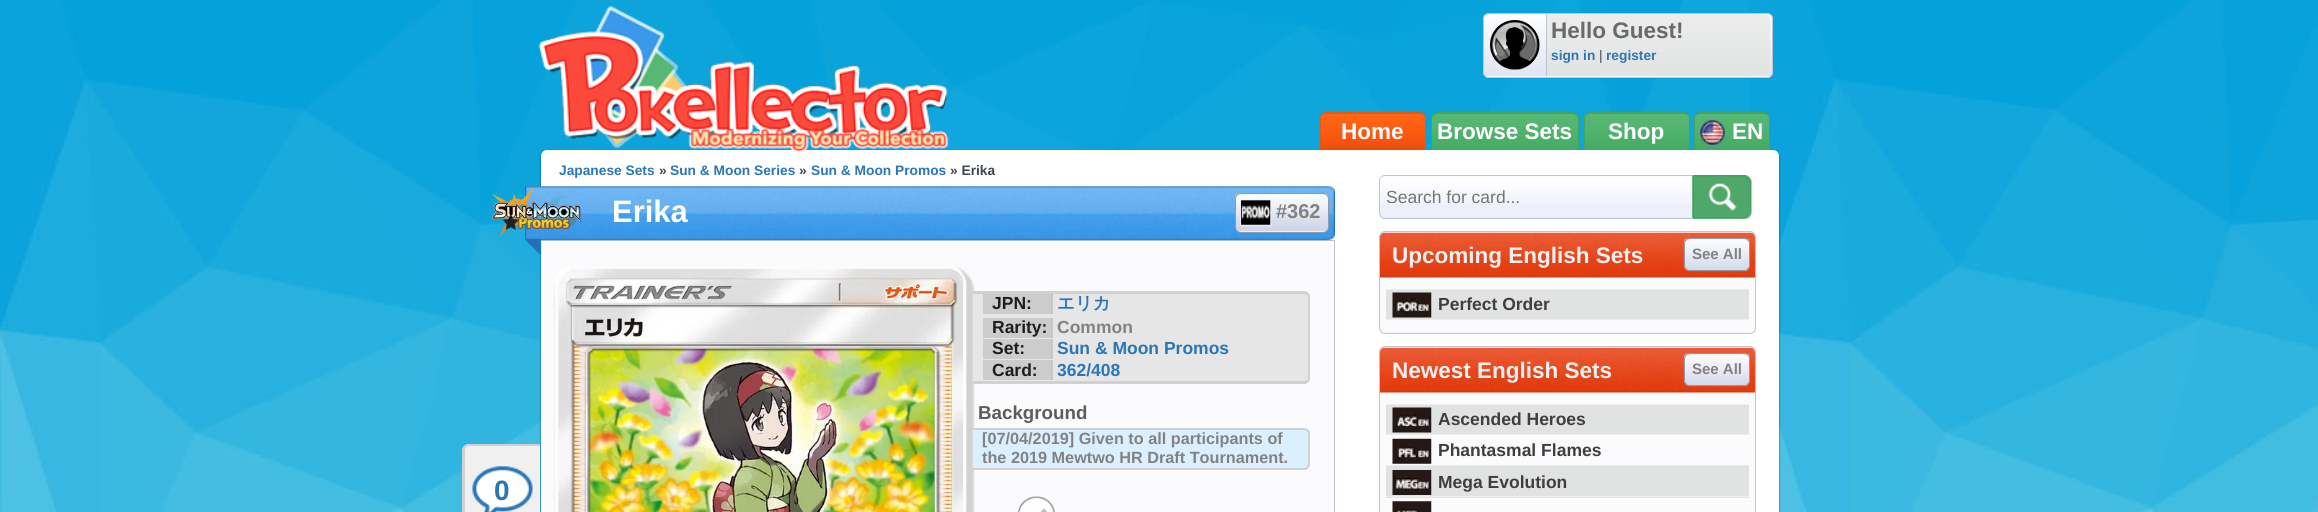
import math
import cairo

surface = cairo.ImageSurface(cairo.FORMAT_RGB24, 2318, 512)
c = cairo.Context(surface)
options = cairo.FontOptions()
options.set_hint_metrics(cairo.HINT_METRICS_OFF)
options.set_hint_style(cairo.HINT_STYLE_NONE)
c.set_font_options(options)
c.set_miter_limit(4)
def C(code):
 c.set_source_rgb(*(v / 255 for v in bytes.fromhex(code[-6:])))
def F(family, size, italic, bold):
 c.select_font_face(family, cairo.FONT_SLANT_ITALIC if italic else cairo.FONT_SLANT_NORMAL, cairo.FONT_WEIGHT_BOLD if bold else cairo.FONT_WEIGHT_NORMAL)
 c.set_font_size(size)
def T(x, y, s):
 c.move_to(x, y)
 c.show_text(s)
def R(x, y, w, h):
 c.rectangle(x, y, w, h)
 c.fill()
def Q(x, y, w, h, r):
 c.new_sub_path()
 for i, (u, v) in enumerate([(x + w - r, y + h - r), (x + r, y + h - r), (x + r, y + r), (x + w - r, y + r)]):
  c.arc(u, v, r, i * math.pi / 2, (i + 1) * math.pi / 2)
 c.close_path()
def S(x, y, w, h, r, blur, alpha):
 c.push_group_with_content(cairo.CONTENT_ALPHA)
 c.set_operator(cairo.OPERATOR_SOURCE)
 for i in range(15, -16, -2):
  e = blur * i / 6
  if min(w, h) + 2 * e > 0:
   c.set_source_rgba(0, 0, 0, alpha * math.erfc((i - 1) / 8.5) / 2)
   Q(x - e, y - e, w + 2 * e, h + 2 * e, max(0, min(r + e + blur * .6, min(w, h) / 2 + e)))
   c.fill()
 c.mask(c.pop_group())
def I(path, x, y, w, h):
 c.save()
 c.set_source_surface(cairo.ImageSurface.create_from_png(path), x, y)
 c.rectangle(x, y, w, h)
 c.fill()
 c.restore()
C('ffffff')
c.paint()
I('1.png',0,0,2318,512)
C('000000')
S(541,151,1238,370,6,1,.5)
C('ffffff')
Q(541,150,1238,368,6)
c.fill()
I('2.png',538,6,411,147)
c.save()
Q(1483,13,290,65,6)
c.clip()
gradient = cairo.LinearGradient(1628,14,1628,76)
gradient.add_color_stop_rgba(0,0.992,0.992,0.996,1)
gradient.add_color_stop_rgba(1,0.882,0.898,0.953,1)
c.set_source(gradient)
R(1483,14,290,62)
gradient = cairo.LinearGradient(1628,76,1628,139)
gradient.add_color_stop_rgba(0,0.992,0.992,0.996,1)
gradient.add_color_stop_rgba(1,0.882,0.898,0.953,1)
c.set_source(gradient)
R(1483,76,290,2)
c.restore()
Q(1483.5,13.5,289,64,5.5)
C('bfc4d1')
c.set_line_width(1)
c.stroke()
I('3.png',1490,20,50,50)
gradient = cairo.LinearGradient(1659,14,1659,76)
gradient.add_color_stop_rgba(0,0.929,0.929,0.929,1)
gradient.add_color_stop_rgba(1,0.882,0.89,0.89,1)
c.set_source(gradient)
c.new_path()
c.move_to(1546,14)
c.line_to(1764,14)
c.curve_to(1767.5,14,1770,16.5,1770,20)
c.line_to(1770,70)
c.curve_to(1770,73.5,1767.5,76,1764,76)
c.line_to(1546,76)
c.close_path()
c.fill()
C('bfc4d1')
R(1546,14,1,62)
F('Liberation Sans',22.5,0,1)
C('6a6a6a')
T(1551,38,'Hello Guest!')
F('Liberation Sans',13.75,0,1)
C('2a76b7')
T(1551,60,'sign in')
F('Liberation Sans',13.75,0,0)
C('414554')
T(1599,60,'|')
F('Liberation Sans',13.75,0,1)
C('2a76b7')
T(1606,60,'register')
I('4.png',1320,112,107,38)
C('e65711')
c.set_fill_rule(cairo.FILL_RULE_EVEN_ODD)
c.new_path()
c.move_to(1326,112)
c.line_to(1420,112)
c.curve_to(1423,112,1426,115,1426,119)
c.line_to(1426,150)
c.line_to(1320,150)
c.line_to(1320,119)
c.curve_to(1320,115,1323,112,1326,112)
c.close_path()
c.move_to(1326,114)
c.line_to(1420,114)
c.curve_to(1423,114,1425,116,1425,119)
c.line_to(1425,150)
c.line_to(1321,150)
c.line_to(1321,119)
c.curve_to(1321,116,1323,114,1326,114)
c.close_path()
c.fill()
F('Liberation Sans',22.5,0,1)
C('ffffff')
T(1341,139,'Home')
I('5.png',1431,113,148,37)
C('45a261')
c.new_path()
c.move_to(1438,112)
c.line_to(1572,112)
c.curve_to(1576,112,1579,115,1579,119)
c.line_to(1579,150)
c.line_to(1431,150)
c.line_to(1431,119)
c.curve_to(1431,115,1434,112,1438,112)
c.close_path()
c.move_to(1438,114)
c.line_to(1572,114)
c.curve_to(1575,114,1578,116,1578,119)
c.line_to(1578,150)
c.line_to(1432,150)
c.line_to(1432,119)
c.curve_to(1432,116,1435,114,1438,114)
c.close_path()
c.fill()
C('ffffff')
T(1437,139,'Browse Sets')
I('6.png',1583,113,107,37)
C('45a261')
c.new_path()
c.move_to(1590,112)
c.line_to(1684,112)
c.curve_to(1687,112,1690,115,1690,119)
c.line_to(1690,150)
c.line_to(1584,150)
c.line_to(1584,119)
c.curve_to(1584,115,1587,112,1590,112)
c.close_path()
c.move_to(1590,114)
c.line_to(1684,114)
c.curve_to(1687,114,1689,116,1689,119)
c.line_to(1689,150)
c.line_to(1585,150)
c.line_to(1585,119)
c.curve_to(1585,116,1587,114,1590,114)
c.close_path()
c.fill()
C('ffffff')
T(1608,139,'Shop')
I('7.png',1693,113,77,37)
C('45a261')
c.new_path()
c.move_to(1700,112)
c.line_to(1764,112)
c.curve_to(1767,112,1770,115,1770,119)
c.line_to(1770,150)
c.line_to(1694,150)
c.line_to(1694,119)
c.curve_to(1694,115,1697,112,1700,112)
c.close_path()
c.move_to(1700,114)
c.line_to(1764,114)
c.curve_to(1767,114,1769,116,1769,119)
c.line_to(1769,150)
c.line_to(1695,150)
c.line_to(1695,119)
c.curve_to(1695,116,1697,114,1700,114)
c.close_path()
c.fill()
I('8.png',1700,120,25,25)
C('ffffff')
T(1732,139,'EN')
F('Liberation Sans',13.75,0,1)
C('2a76b7')
T(559,175,'Japanese Sets')
C('414554')
T(659,175,'»')
C('2a76b7')
T(670,175,'Sun & Moon Series')
C('414554')
T(799,175,'»')
C('2a76b7')
T(811,175,'Sun & Moon Promos')
C('414554')
T(950,175,'» Erika')
C('fbfbfd')
R(541,241,793,271)
C('bfc4d1')
c.new_path()
c.move_to(541,240)
c.line_to(1335,240)
c.line_to(1335,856)
c.curve_to(1335,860,1332,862,1329,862)
c.line_to(541,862)
c.close_path()
c.move_to(541,241)
c.line_to(1334,241)
c.line_to(1334,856)
c.curve_to(1334,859,1332,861,1329,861)
c.line_to(541,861)
c.close_path()
c.fill()
I('9.png',525,186,810,70)
I('10.png',490,187,91,50)
F('Liberation Sans',31,0,1)
C('ffffff')
T(612,222,'Erika')
I('11.png',1235,193,94,40)
Q(1235.5,193.5,93,39,5.5)
C('8e9ba6')
c.stroke()
I('12.png',1240,199,32,28)
F('Liberation Sans',20,0,1)
C('828282')
T(1276,218,'#362')
I('13.png',553,266,422,246)
I('14.png',558,268,406,244)
C('e6e6e6')
c.new_path()
c.move_to(973,291)
c.line_to(1304,291)
c.curve_to(1307.5,291,1310,293.5,1310,297)
c.line_to(1310,378)
c.curve_to(1310,381.5,1307.5,384,1304,384)
c.line_to(973,384)
c.close_path()
c.fill()
C('d1d1d2')
c.new_path()
c.move_to(972,291)
c.line_to(1304,291)
c.curve_to(1307,291,1310,294,1310,298)
c.line_to(1310,378)
c.curve_to(1310,381,1307,384,1304,384)
c.line_to(972,384)
c.close_path()
c.move_to(972,294)
c.line_to(1304,294)
c.curve_to(1306,294,1308,295,1308,298)
c.line_to(1308,378)
c.curve_to(1308,380,1306,381,1304,381)
c.line_to(972,381)
c.close_path()
c.fill()
C('cccccc')
R(983,294,70,20)
c.new_path()
c.move_to(1052,294)
c.line_to(1052,314)
C('c0c0c0')
c.set_line_width(1.2)
c.set_dash([3.75,1.66])
c.stroke()
F('Liberation Sans',17.5,0,1)
C('1e1e1e')
T(992,309,'JPN:')
F('WenQuanYi Zen Hei',17.5,0,1)
C('2a76b7')
T(1057,309,'エリカ')
C('cccccc')
R(983,318,70,20)
c.new_path()
c.move_to(1052,317.5)
c.line_to(1052,337.5)
C('c0c0c0')
c.stroke()
F('Liberation Sans',17.5,0,1)
C('1e1e1e')
T(992,333,'Rarity:')
C('828282')
T(1057,333,'Common')
C('cccccc')
R(983,339,70,20)
c.new_path()
c.move_to(1052,339)
c.line_to(1052,359)
C('c0c0c0')
c.stroke()
C('1e1e1e')
T(992,354,'Set:')
C('2a76b7')
T(1057,354,'Sun & Moon Promos')
C('cccccc')
R(983,360,70,20)
c.new_path()
c.move_to(1052,360)
c.line_to(1052,380)
C('c0c0c0')
c.stroke()
C('1e1e1e')
T(992,376,'Card:')
C('2a76b7')
T(1057,376,'362/408')
F('Liberation Sans',18.75,0,1)
C('5c5c5c')
T(978,419,'Background')
C('dbf0ff')
c.new_path()
c.move_to(973,428)
c.line_to(1304,428)
c.curve_to(1307.5,428,1310,430.5,1310,434)
c.line_to(1310,464)
c.curve_to(1310,467.5,1307.5,470,1304,470)
c.line_to(973,470)
c.close_path()
c.fill()
C('d1d1d2')
c.new_path()
c.move_to(972,428)
c.line_to(1304,428)
c.curve_to(1307,428,1310,430,1310,434)
c.line_to(1310,464)
c.curve_to(1310,467,1307,470,1304,470)
c.line_to(972,470)
c.close_path()
c.move_to(972,430)
c.line_to(1304,430)
c.curve_to(1306,430,1308,432,1308,434)
c.line_to(1308,464)
c.curve_to(1308,466,1306,468,1304,468)
c.line_to(972,468)
c.close_path()
c.fill()
F('Liberation Sans',16.25,0,1)
C('828282')
T(982,444,'[07/04/2019] Given to all participants of')
T(982,463,'the 2019 Mewtwo HR Draft Tournament.')
I('15.png',1018,496,37,16)
C('f0f0f0')
c.new_path()
c.move_to(469,444)
c.line_to(540,444)
c.line_to(540,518)
c.line_to(469,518)
c.curve_to(465.5,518,463,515.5,463,512)
c.line_to(463,450)
c.curve_to(463,446.5,465.5,444,469,444)
c.close_path()
c.fill()
C('d1d1d2')
c.new_path()
c.move_to(469,444)
c.line_to(540,444)
c.line_to(540,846)
c.line_to(469,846)
c.curve_to(465,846,462,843,462,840)
c.line_to(462,450)
c.curve_to(462,447,465,444,469,444)
c.close_path()
c.move_to(469,446)
c.line_to(540,446)
c.line_to(540,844)
c.line_to(469,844)
c.curve_to(467,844,465,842,465,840)
c.line_to(465,450)
c.curve_to(465,448,467,446,469,446)
c.close_path()
c.fill()
I('16.png',472,466,61,46)
F('Liberation Sans',28,0,1)
C('2a76b7')
T(494,500,'0')
C('fbfbfd')
R(1379,175,375,44)
C('edeffb')
c.new_path()
c.move_to(1385,175)
c.line_to(1693,175)
c.line_to(1693,219)
c.line_to(1385,219)
c.curve_to(1381.5,219,1379,216.5,1379,213)
c.line_to(1379,181)
c.curve_to(1379,177.5,1381.5,175,1385,175)
c.close_path()
c.fill()
I('17.png',1379,176,314,28)
C('bfc1d7')
c.new_path()
c.move_to(1385,175)
c.line_to(1692,175)
c.line_to(1692,219)
c.line_to(1385,219)
c.curve_to(1382,219,1379,216,1379,212)
c.line_to(1379,181)
c.curve_to(1379,178,1382,175,1385,175)
c.close_path()
c.move_to(1385,176)
c.line_to(1692,176)
c.line_to(1692,218)
c.line_to(1385,218)
c.curve_to(1382,218,1380,215,1380,212)
c.line_to(1380,181)
c.curve_to(1380,178,1382,176,1385,176)
c.close_path()
c.fill()
F('Liberation Sans',17.5,0,0)
C('757575')
T(1386,203,'Search for card...')
C('edeffb')
R(1693,216,58,3)
I('18.png',1692,175,60,44)
I('19.png',1692,175,60,44)
C('fbfbfd')
Q(1379.5,231.5,376,102,5.5)
c.fill_preserve()
C('bfc4d1')
c.set_line_width(1)
c.set_dash([])
c.stroke()
I('20.png',1380,232,375,46)
F('Liberation Sans',22.5,0,1)
C('f1f1f1')
T(1392,263,'Upcoming English Sets')
I('21.png',1683,238,67,34)
Q(1684.5,238.5,65,32,5.5)
C('8e9ba6')
c.stroke()
F('Liberation Sans',15,0,1)
C('828282')
T(1692,259,'See All')
C('e1e3e3')
R(1386,290,363,29)
C('ededec')
R(1386,289,363,1)
R(1386,319,363,1)
I('22.png',1392,292,40,26)
F('Liberation Sans',17.5,0,1)
C('403e3f')
T(1438,310,'Perfect Order')
C('fbfbfd')
Q(1379.5,346.5,376,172,5.5)
c.fill_preserve()
C('bfc4d1')
c.stroke()
I('20.png',1380,347,375,46)
F('Liberation Sans',22.5,0,1)
C('f1f1f1')
T(1392,378,'Newest English Sets')
I('23.png',1683,353,67,34)
Q(1684.5,353.5,65,32,5.5)
C('8e9ba6')
c.stroke()
F('Liberation Sans',15,0,1)
C('828282')
T(1692,374,'See All')
C('e1e3e3')
R(1386,405,363,29)
C('ededec')
R(1386,404,363,1)
R(1386,434,363,1)
I('24.png',1392,407,40,26)
F('Liberation Sans',17.5,0,1)
C('403e3f')
T(1438,425,'Ascended Heroes')
C('ededec')
R(1386,465,363,1)
I('25.png',1392,438,40,26)
C('403e3f')
T(1438,456,'Phantasmal Flames')
C('e1e3e3')
R(1386,466,363,32)
C('ededec')
R(1386,496,363,1)
I('26.png',1392,470,40,25)
C('403e3f')
T(1438,488,'Mega Evolution')
I('27.png',1392,501,40,11)
surface.write_to_png('o.png')
